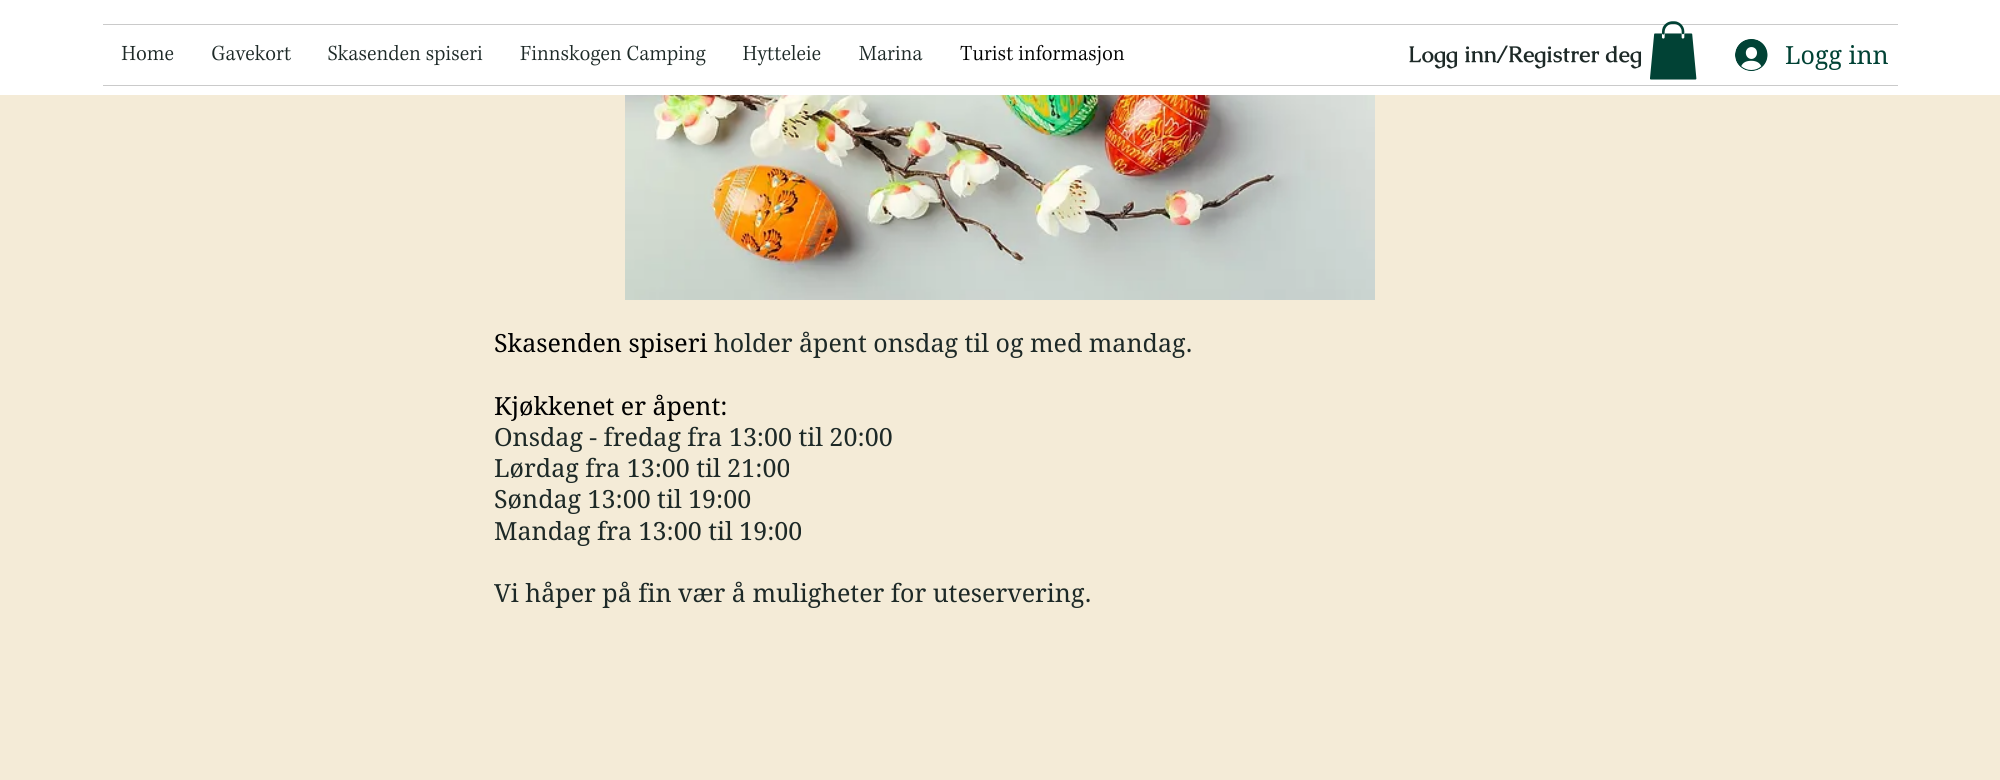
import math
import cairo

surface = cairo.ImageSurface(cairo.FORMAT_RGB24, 2000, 780)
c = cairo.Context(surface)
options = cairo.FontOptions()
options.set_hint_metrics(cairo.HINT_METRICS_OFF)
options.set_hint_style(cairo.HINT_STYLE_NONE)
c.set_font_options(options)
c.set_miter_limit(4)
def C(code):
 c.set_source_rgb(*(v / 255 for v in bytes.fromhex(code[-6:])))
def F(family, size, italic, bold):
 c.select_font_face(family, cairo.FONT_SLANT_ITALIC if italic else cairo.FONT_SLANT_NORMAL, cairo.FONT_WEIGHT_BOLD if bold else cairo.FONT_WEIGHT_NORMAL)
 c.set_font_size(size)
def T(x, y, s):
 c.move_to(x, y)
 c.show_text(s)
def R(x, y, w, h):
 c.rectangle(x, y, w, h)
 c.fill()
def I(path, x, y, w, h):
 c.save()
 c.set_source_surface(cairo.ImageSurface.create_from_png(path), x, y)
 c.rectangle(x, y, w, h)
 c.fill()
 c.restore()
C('f4ebd7')
c.paint()
C('ffffff')
R(0,0,2000,95)
C('cacaca')
R(103,24,1795,1)
I('1.png',1650,21,47,59)
R(103,85,1795,1)
I('2.png',121,45,53,16)
I('3.png',212,45,79,16)
I('4.png',328,44,155,22)
I('5.png',520,44,186,22)
I('6.png',743,44,78,22)
I('7.png',859,45,64,16)
I('8.png',960,44,165,22)
F('Caudex',22.5,0,1)
C('1d2927')
T(1408,62,'Logg inn/Registrer deg')
I('9.png',1735,39,33,32)
F('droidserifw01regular',25,0,0)
C('014235')
T(1785,64,'Logg inn')
I('10.png',625,95,750,205)
C('000000')
T(494,352,'Skasenden spiseri')
C('1d2927')
T(714,352,'holder åpent onsdag til og med mandag.')
C('000000')
T(494,415,'Kjøkkenet er åpent:')
C('1d2927')
T(494,446,'Onsdag - fredag fra 13:00 til 20:00')
T(494,477,'Lørdag fra 13:00 til 21:00')
T(494,508,'Søndag 13:00 til 19:00')
T(494,540,'Mandag fra 13:00 til 19:00')
T(494,602,'Vi håper på fin vær å muligheter for uteservering.')
surface.write_to_png('o.png')
